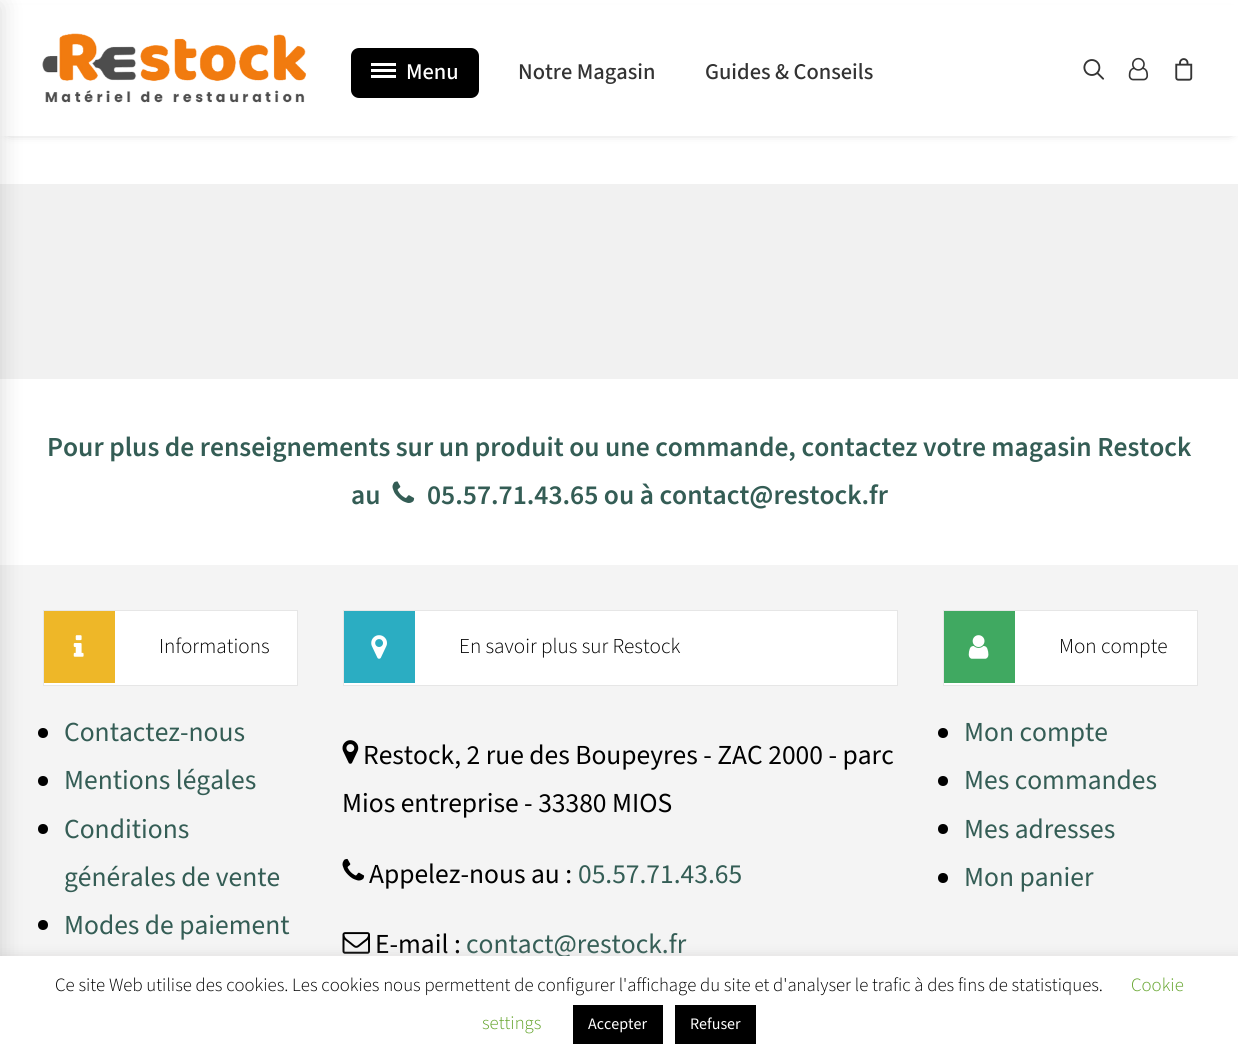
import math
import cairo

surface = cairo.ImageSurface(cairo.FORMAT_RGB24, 1238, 1064)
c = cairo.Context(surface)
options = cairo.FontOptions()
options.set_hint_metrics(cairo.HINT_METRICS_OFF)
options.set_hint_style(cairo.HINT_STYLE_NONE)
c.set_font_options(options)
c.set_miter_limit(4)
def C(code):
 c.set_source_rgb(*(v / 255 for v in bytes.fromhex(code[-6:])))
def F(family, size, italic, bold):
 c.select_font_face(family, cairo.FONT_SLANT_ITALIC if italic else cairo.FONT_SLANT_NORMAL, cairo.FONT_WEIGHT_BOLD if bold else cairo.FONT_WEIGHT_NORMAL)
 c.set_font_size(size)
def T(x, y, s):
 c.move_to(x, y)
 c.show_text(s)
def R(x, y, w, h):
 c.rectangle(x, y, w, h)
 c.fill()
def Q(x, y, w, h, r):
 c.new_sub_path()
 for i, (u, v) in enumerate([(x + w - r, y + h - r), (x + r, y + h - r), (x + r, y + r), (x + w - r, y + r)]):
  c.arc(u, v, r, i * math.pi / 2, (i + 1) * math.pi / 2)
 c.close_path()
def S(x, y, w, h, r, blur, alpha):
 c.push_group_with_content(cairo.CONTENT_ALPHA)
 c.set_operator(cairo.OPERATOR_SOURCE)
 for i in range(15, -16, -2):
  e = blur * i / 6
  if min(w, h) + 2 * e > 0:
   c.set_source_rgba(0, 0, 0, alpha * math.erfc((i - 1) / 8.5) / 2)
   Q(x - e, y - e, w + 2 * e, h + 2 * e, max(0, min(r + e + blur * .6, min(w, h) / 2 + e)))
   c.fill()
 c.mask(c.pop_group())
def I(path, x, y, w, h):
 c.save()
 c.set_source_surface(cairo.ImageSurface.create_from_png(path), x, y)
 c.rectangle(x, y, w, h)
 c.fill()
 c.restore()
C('ffffff')
c.paint()
C('000000')
S(10,18,1220,111,0,6,.6)
C('ffffff')
R(0,5,1238,131)
I('1.png',42,33,265,70)
C('f1f1f1')
R(0,184,1238,195)
C('f4f4f4')
R(0,565,1238,391)
C('000000')
c.arc(43,733,5,0,2 * math.pi)
c.fill()
c.arc(43,781,5,0,2 * math.pi)
c.fill()
c.arc(43,829,5,0,2 * math.pi)
c.fill()
c.arc(43,925,5,0,2 * math.pi)
c.fill()
C('000000')
S(-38,5,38,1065,0,12.5,.15)
C('000000')
Q(351,48,128,50,8)
c.fill()
C('ffffff')
R(371,63,25,3)
R(371,69,25,3)
R(371,75,25,3)
F('Source Sans 3 Medium',22.5,0,0)
T(406,79,'Menu')
C('333333')
T(518,79,'Notre Magasin')
T(705,79,'Guides & Conseils')
I('2.png',1083,59,22,21)
I('3.png',1128,57,21,24)
I('4.png',1175,58,18,23)
F('Source Sans 3 SemiBold',27.5,0,0)
C('345d55')
T(47,456,'Pour plus de renseignements sur un produit ou une commande, contactez votre magasin Restock')
T(351,504,'au')
I('5.png',392,481,23,22)
T(427,504,'05.57.71.43.65 ou à contact@restock.fr')
C('ffffff')
c.rectangle(43.5,610.5,254,75)
c.fill_preserve()
C('e6e6e6')
c.set_line_width(1)
c.stroke()
C('eeb728')
R(44,611,71,72)
I('6.png',73,635,11,22)
F('Source Sans 3 Light',21.25,0,0)
C('000000')
T(159,653,'Informations')
F('Source Sans 3',27.5,0,0)
C('345d55')
T(64,741,'Contactez-nous')
T(64,789,'Mentions légales')
T(64,838,'Conditions')
T(64,886,'générales de vente')
T(64,934,'Modes de paiement')
C('ffffff')
c.rectangle(343.5,610.5,554,75)
c.fill_preserve()
C('e6e6e6')
c.stroke()
C('2badc2')
R(344,611,71,72)
I('7.png',371,635,16,24)
F('Source Sans 3 Light',21.25,0,0)
C('000000')
T(459,653,'En savoir plus sur Restock')
I('8.png',342,740,17,24)
F('Source Sans 3',27.5,0,0)
T(363,764,'Restock, 2 rue des Boupeyres - ZAC 2000 - parc')
T(342,812,'Mios entreprise - 33380 MIOS')
I('9.png',342,858,23,23)
T(369,883,'Appelez-nous au :')
C('345d55')
T(578,883,'05.57.71.43.65')
I('10.png',342,932,28,22)
C('000000')
T(375,953,'E-mail :')
C('345d55')
T(466,953,'contact@restock.fr')
C('ffffff')
c.rectangle(943.5,610.5,254,75)
c.fill_preserve()
C('e6e6e6')
c.stroke()
C('40a961')
R(944,611,71,72)
I('11.png',968,635,21,24)
F('Source Sans 3 Light',21.25,0,0)
C('000000')
T(1059,653,'Mon compte')
c.new_path()
c.arc(943,733,5,0,2 * math.pi)
c.fill()
F('Source Sans 3',27.5,0,0)
C('345d55')
T(964,741,'Mon compte')
C('000000')
c.new_path()
c.arc(943,781,5,0,2 * math.pi)
c.fill()
C('345d55')
T(964,789,'Mes commandes')
C('000000')
c.new_path()
c.arc(943,829,5,0,2 * math.pi)
c.fill()
C('345d55')
T(964,838,'Mes adresses')
C('000000')
c.new_path()
c.arc(943,878,5,0,2 * math.pi)
c.fill()
C('345d55')
T(964,886,'Mon panier')
C('acabab')
S(0,955,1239,109,0,6,.3)
C('ffffff')
R(0,956,1238,108)
F('Source Sans 3 Light',18.75,0,0)
C('000000')
T(55,991,'Ce site Web utilise des cookies. Les cookies nous permettent de configurer l\'affichage du site et d\'analyser le trafic à des fins de statistiques.')
C('62a329')
T(1131,991,'Cookie')
T(482,1029,'settings')
C('000000')
R(573,1005,90,39)
F('Source Sans 3',16,0,0)
C('ffffff')
T(588,1029,'Accepter')
C('000000')
R(675,1005,81,39)
C('ffffff')
T(690,1029,'Refuser')
surface.write_to_png('o.png')
